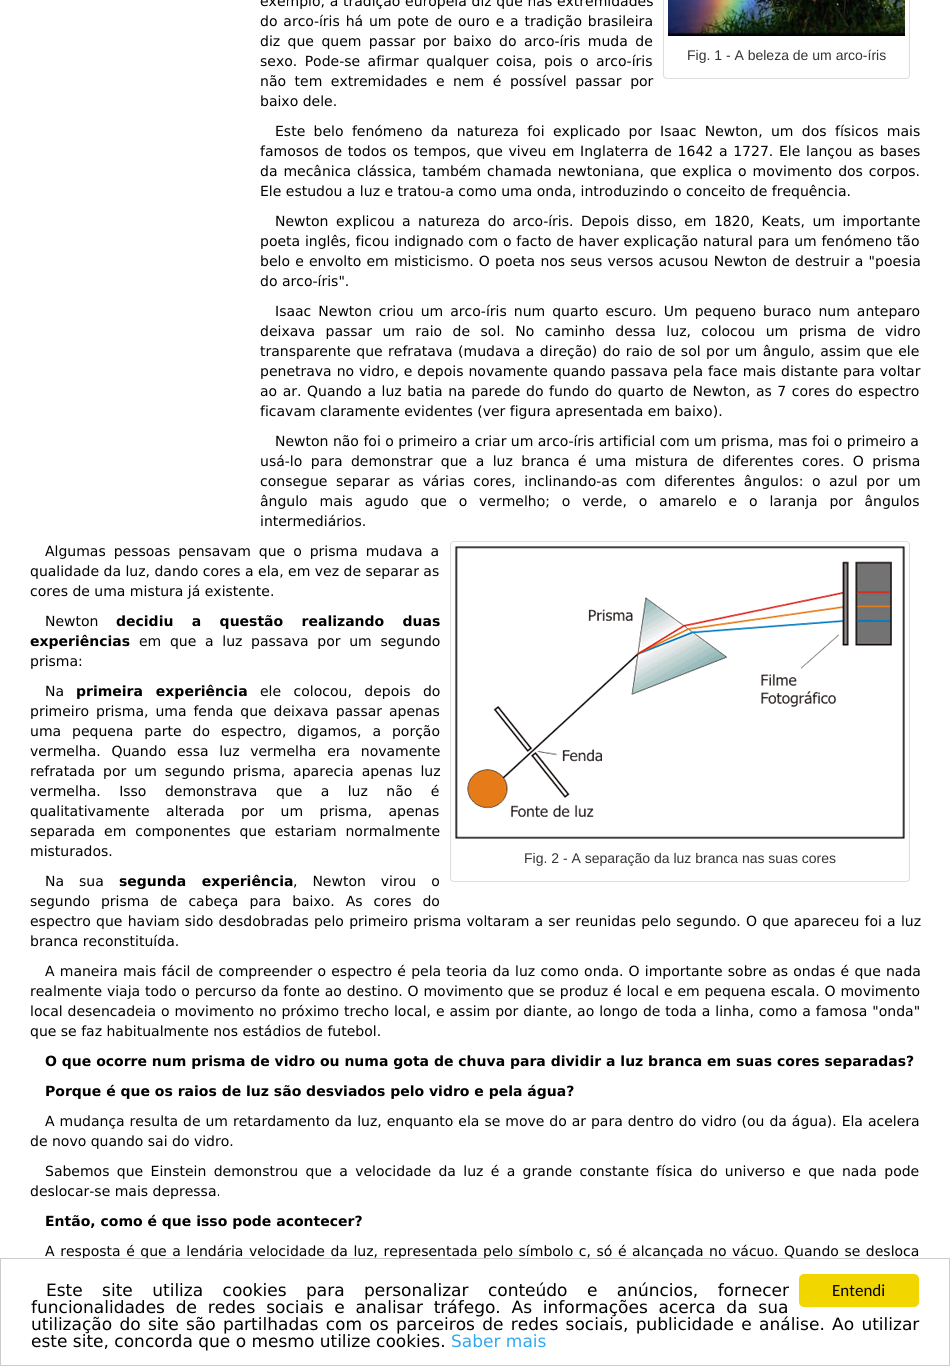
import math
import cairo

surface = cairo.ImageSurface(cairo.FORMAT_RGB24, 950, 1366)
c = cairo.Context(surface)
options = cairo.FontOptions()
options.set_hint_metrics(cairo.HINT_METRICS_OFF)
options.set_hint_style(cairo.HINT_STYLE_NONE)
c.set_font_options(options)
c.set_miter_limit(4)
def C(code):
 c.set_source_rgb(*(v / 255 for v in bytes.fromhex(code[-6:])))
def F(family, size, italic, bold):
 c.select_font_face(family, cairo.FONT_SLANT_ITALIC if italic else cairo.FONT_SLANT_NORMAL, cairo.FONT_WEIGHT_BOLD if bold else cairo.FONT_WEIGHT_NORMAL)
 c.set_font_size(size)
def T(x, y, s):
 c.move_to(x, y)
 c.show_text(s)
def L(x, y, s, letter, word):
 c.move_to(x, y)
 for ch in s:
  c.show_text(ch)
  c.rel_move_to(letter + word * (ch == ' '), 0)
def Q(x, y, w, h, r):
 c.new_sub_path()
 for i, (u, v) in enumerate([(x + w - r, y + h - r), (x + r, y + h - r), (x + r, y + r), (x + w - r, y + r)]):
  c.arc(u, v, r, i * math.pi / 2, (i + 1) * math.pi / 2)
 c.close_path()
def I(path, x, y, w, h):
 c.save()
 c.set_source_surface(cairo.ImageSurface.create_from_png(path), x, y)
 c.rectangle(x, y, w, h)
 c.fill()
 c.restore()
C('ffffff')
c.paint()
F('DejaVu Sans',14,0,0)
C('000000')
L(260,6,'exemplo, a tradição europeia diz que nas extremidades',0,.25)
L(260,26,'do arco-íris há um pote de ouro e a tradição brasileira',0,1.4)
L(260,46,'diz que quem passar por baixo do arco-íris muda de',0,3)
L(260,66,'sexo. Pode-se afirmar qualquer coisa, pois o arco-íris',0,3)
L(260,86,'não tem extremidades e nem é possível passar por',0,4.1)
T(260,106,'baixo dele.')
Q(663.5,-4.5,246,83,3.5)
C('dddddd')
c.set_line_width(1)
c.stroke()
I('1.png',668,0,237,36)
F('Liberation Sans',14,0,0)
C('333333')
T(687,60,'Fig. 1 - A beleza de um arco-íris')
F('DejaVu Sans',14,0,0)
C('000000')
L(275,136,'Este belo fenómeno da natureza foi explicado por Isaac Newton, um dos físicos mais',0,3.9)
L(260,156,'famosos de todos os tempos, que viveu em Inglaterra de 1642 a 1727. Ele lançou as bases',0,1.25)
L(260,176,'da mecânica clássica, também chamada newtoniana, que explica o movimento dos corpos.',0,1.5)
T(260,196,'Ele estudou a luz e tratou-a como uma onda, introduzindo o conceito de frequência.')
L(275,226,'Newton explicou a natureza do arco-íris. Depois disso, em 1820, Keats, um importante',0,3)
L(260,246,'poeta inglês, ficou indignado com o facto de haver explicação natural para um fenómeno tão',0,.3)
L(260,266,'belo e envolto em misticismo. O poeta nos seus versos acusou Newton de destruir a "poesia',0,.75)
T(260,286,'do arco-íris".')
L(275,316,'Isaac Newton criou um arco-íris num quarto escuro. Um pequeno buraco num anteparo',0,2.6)
L(260,336,'deixava passar um raio de sol. No caminho dessa luz, colocou um prisma de vidro',0,6)
L(260,356,'transparente que refratava (mudava a direção) do raio de sol por um ângulo, assim que ele',0,1)
L(260,376,'penetrava no vidro, e depois novamente quando passava pela face mais distante para voltar',0,.5)
L(260,396,'ao ar. Quando a luz batia na parede do fundo do quarto de Newton, as 7 cores do espectro',0,1.1)
T(260,416,'ficavam claramente evidentes (ver figura apresentada em baixo).')
T(275,446,'Newton não foi o primeiro a criar um arco-íris artificial com um prisma, mas foi o primeiro a')
L(260,466,'usá-lo para demonstrar que a luz branca é uma mistura de diferentes cores. O prisma',0,4)
L(260,486,'consegue separar as várias cores, inclinando-as com diferentes ângulos: o azul por um',0,4.1)
L(260,506,'ângulo mais agudo que o vermelho; o verde, o amarelo e o laranja por ângulos',0,7.4)
T(260,526,'intermediários.')
L(45,556,'Algumas pessoas pensavam que o prisma mudava a',0,3.5)
T(30,576,'qualidade da luz, dando cores a ela, em vez de separar as')
T(30,596,'cores de uma mistura já existente.')
T(45,626,'Newton')
F('DejaVu Sans',14,0,1)
L(116,626,'decidiu a questão realizando duas',0,13.5)
T(30,646,'experiências')
F('DejaVu Sans',14,0,0)
L(139,646,'em que a luz passava por um segundo',0,4.25)
T(30,666,'prisma:')
T(45,696,'Na')
F('DejaVu Sans',14,0,1)
L(76,696,'primeira experiência',0,8)
F('DejaVu Sans',14,0,0)
L(260,696,'ele colocou, depois do',0,8)
L(30,716,'primeiro prisma, uma fenda que deixava passar apenas',0,2.5)
L(30,736,'uma pequena parte do espectro, digamos, a porção',0,6.5)
L(30,756,'vermelha. Quando essa luz vermelha era novamente',0,6.25)
L(30,776,'refratada por um segundo prisma, aparecia apenas luz',0,3.5)
L(30,796,'vermelha. Isso demonstrava que a luz não é',0,14)
L(30,816,'qualitativamente alterada por um prisma, apenas',0,12)
L(30,836,'separada em componentes que estariam normalmente',0,4.5)
T(30,856,'misturados.')
Q(450.5,541.5,459,340,3.5)
C('dddddd')
c.stroke()
I('2.png',455,546,450,293)
F('Liberation Sans',14,0,0)
C('333333')
T(524,863,'Fig. 2 - A separação da luz branca nas suas cores')
F('DejaVu Sans',14,0,0)
C('000000')
L(45,886,'Na sua',0,10.5)
F('DejaVu Sans',14,0,1)
L(119,886,'segunda experiência',0,10.5)
F('DejaVu Sans',14,0,0)
L(293,886,', Newton virou o',0,10.5)
L(30,906,'segundo prisma de cabeça para baixo. As cores do',0,6.5)
L(30,926,'espectro que haviam sido desdobradas pelo primeiro prisma voltaram a ser reunidas pelo segundo. O que apareceu foi a luz',0,.75)
T(30,946,'branca reconstituída.')
L(45,976,'A maneira mais fácil de compreender o espectro é pela teoria da luz como onda. O importante sobre as ondas é que nada',0,.75)
L(30,996,'realmente viaja todo o percurso da fonte ao destino. O movimento que se produz é local e em pequena escala. O movimento',0,.4)
L(30,1016,'local desencadeia o movimento no próximo trecho local, e assim por diante, ao longo de toda a linha, como a famosa "onda"',0,.5)
T(30,1036,'que se faz habitualmente nos estádios de futebol.')
F('DejaVu Sans',14,0,1)
T(45,1066,'O que ocorre num prisma de vidro ou numa gota de chuva para dividir a luz branca em suas cores separadas?')
T(45,1096,'Porque é que os raios de luz são desviados pelo vidro e pela água?')
F('DejaVu Sans',14,0,0)
L(45,1126,'A mudança resulta de um retardamento da luz, enquanto ela se move do ar para dentro do vidro (ou da água). Ela acelera',0,.5)
T(30,1146,'de novo quando sai do vidro.')
L(45,1176,'Sabemos que Einstein demonstrou que a velocidade da luz é a grande constante física do universo e que nada pode',0,2.9)
T(30,1196,'deslocar-se mais depressa.')
F('DejaVu Sans',14,0,1)
T(45,1226,'Então, como é que isso pode acontecer?')
F('DejaVu Sans',14,0,0)
L(45,1256,'A resposta é que a lendária velocidade da luz, representada pelo símbolo c, só é alcançada no vácuo. Quando se desloca',0,1.1)
c.rectangle(.5,1258.5,949,107)
C('cccccc')
c.stroke()
F('DejaVu Sans',17,0,0)
C('000000')
L(46,1296,'Este site utiliza cookies para personalizar conteúdo e anúncios, fornecer',0,14)
L(31,1313,'funcionalidades de redes sociais e analisar tráfego. As informações acerca da sua',0,5.4)
L(31,1330,'utilização do site são partilhadas com os parceiros de redes sociais, publicidade e análise. Ao utilizar',0,1.9)
T(31,1347,'este site, concorda que o mesmo utilize cookies.')
C('31a8f0')
T(451,1347,'Saber mais')
C('f1d600')
Q(799,1274,120,33,5)
c.fill()
F('Carlito',17,0,0)
C('000000')
T(832,1296,'Entendi')
surface.write_to_png('o.png')
